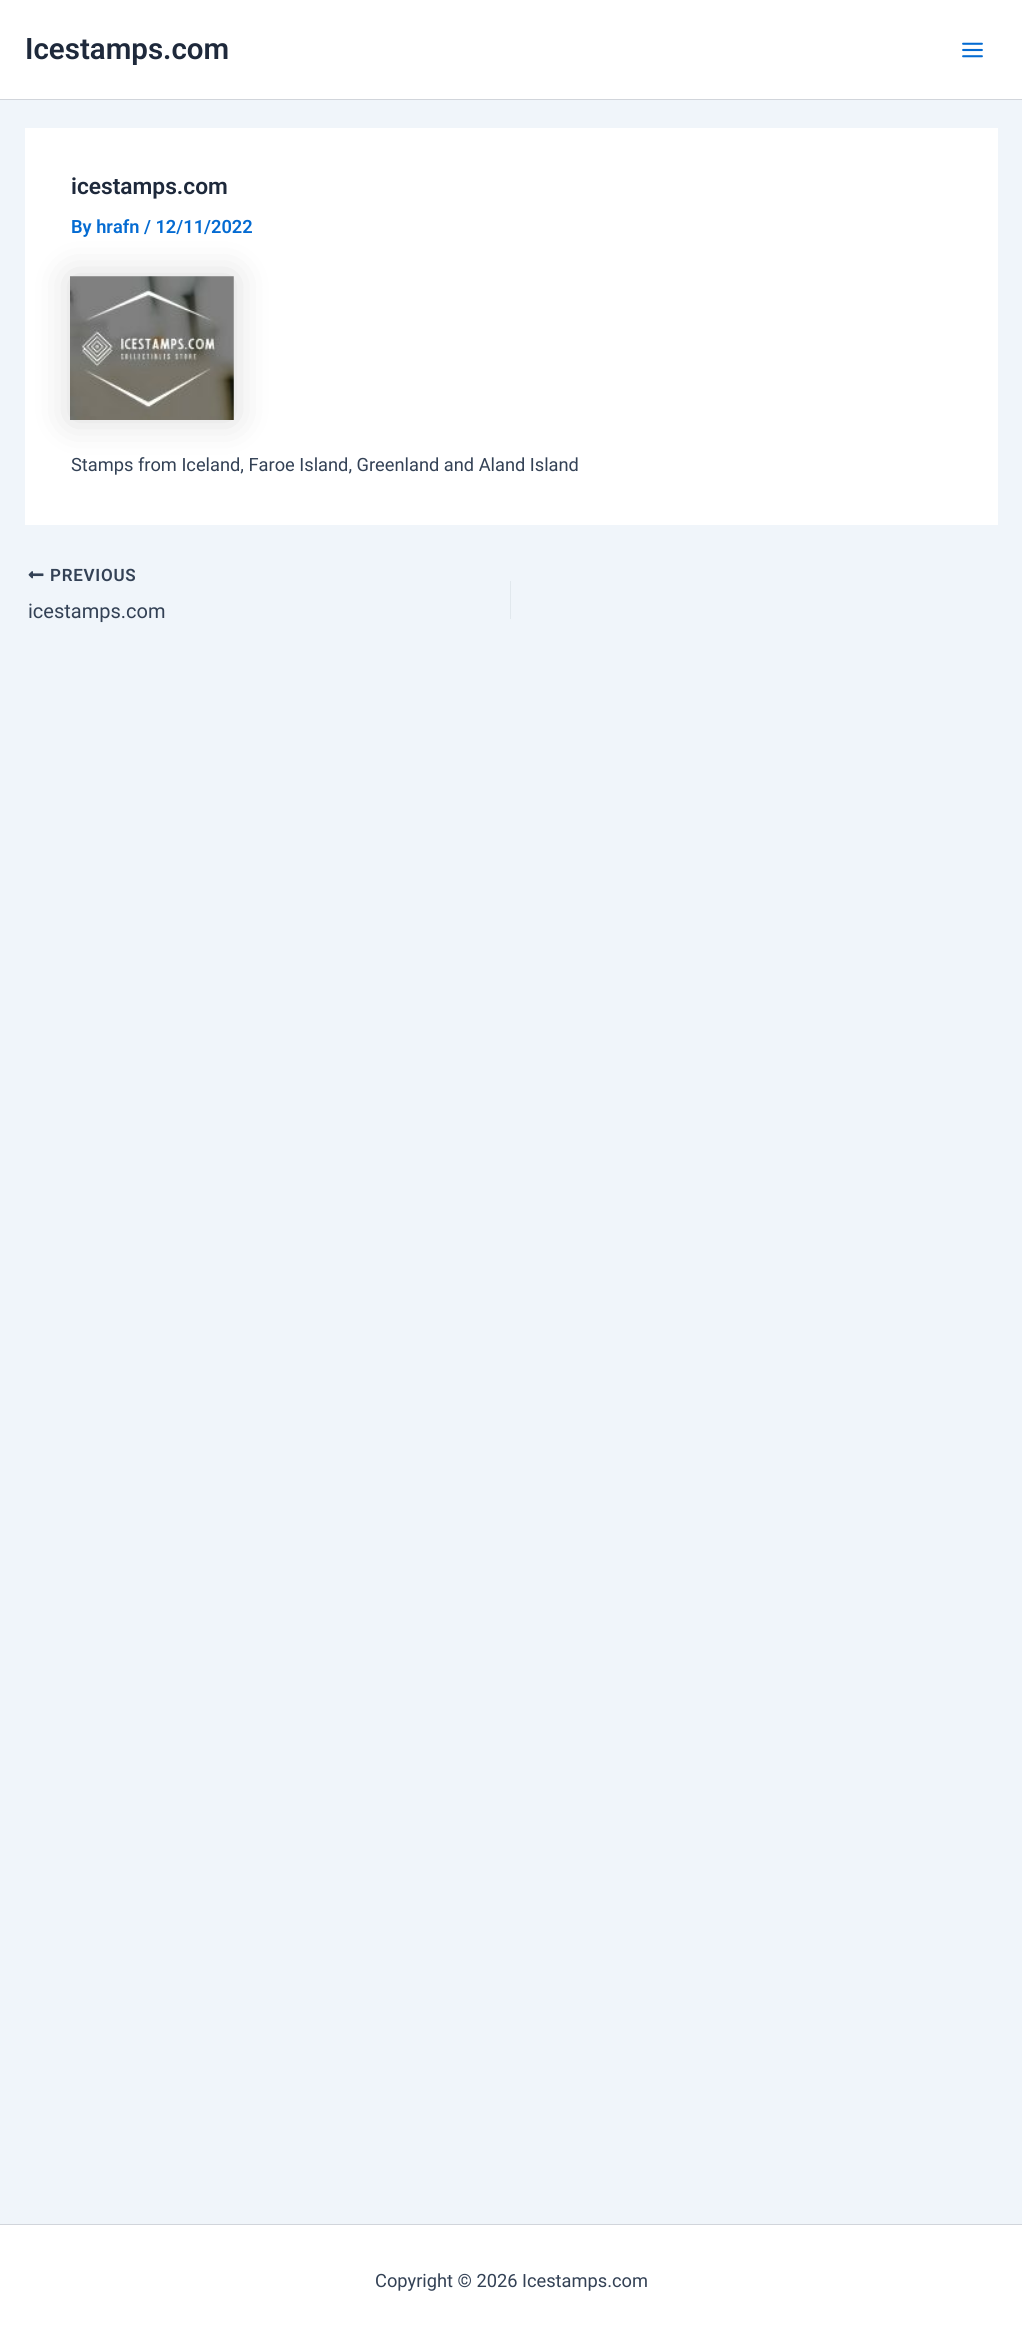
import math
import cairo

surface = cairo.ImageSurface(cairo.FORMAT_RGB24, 1022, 2350)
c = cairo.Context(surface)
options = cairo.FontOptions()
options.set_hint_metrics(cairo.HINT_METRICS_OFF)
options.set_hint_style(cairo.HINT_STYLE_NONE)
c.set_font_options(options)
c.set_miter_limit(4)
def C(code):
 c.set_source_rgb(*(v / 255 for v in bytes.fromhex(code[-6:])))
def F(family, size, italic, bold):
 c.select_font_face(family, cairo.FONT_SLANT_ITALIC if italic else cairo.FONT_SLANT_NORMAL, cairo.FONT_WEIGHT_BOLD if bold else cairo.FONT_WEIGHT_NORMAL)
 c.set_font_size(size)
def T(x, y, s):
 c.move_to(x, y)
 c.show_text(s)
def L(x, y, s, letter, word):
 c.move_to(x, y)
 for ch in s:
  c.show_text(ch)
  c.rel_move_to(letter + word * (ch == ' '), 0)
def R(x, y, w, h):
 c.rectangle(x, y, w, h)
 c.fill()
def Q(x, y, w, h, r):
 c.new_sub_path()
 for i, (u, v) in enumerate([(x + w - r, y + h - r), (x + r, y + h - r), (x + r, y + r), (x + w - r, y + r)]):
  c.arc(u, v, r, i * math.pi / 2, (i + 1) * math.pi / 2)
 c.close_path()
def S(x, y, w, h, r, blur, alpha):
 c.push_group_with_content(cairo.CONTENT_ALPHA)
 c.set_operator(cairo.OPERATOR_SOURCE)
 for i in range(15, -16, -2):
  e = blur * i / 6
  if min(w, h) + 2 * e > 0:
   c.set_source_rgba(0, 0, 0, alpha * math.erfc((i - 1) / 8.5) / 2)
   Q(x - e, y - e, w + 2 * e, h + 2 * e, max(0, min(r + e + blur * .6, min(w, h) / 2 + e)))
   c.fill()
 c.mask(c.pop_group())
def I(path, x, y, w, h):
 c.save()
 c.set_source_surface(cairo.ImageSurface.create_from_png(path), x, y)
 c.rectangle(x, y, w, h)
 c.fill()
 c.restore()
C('f0f5fa')
c.paint()
C('ffffff')
R(0,0,1022,99)
C('d1d5db')
R(0,99,1022,1)
F('Roboto SemiBold',29.5,0,0)
C('1e293b')
T(25,59,'Icestamps.com')
I('1.png',962,42,21,16)
C('ffffff')
R(25,128,973,397)
F('Roboto SemiBold',22.75,0,0)
C('1e293b')
T(71,194,'icestamps.com')
F('Roboto SemiBold',18.25,0,0)
C('046bd2')
T(71,233,'By hrafn / 12/11/2022')
C('000000')
S(70,276,164,144,0,19,.15)
I('2.png',70,276,164,144)
F('Roboto',18.25,0,0)
C('334155')
T(71,471,'Stamps from Iceland, Faroe Island, Greenland and Aland Island')
I('3.png',28,571,16,8)
F('Roboto SemiBold',17,0,0)
L(50,581,'PREVIOUS',.75,0)
F('Roboto',20,0,0)
T(28,618,'icestamps.com')
C('e1e8ed')
R(510,581,1,38)
C('ffffff')
R(0,2225,1022,125)
C('d1d5db')
R(0,2224,1022,1)
F('Roboto',18.25,0,0)
C('334155')
T(375,2287,'Copyright © 2026 Icestamps.com')
surface.write_to_png('o.png')
